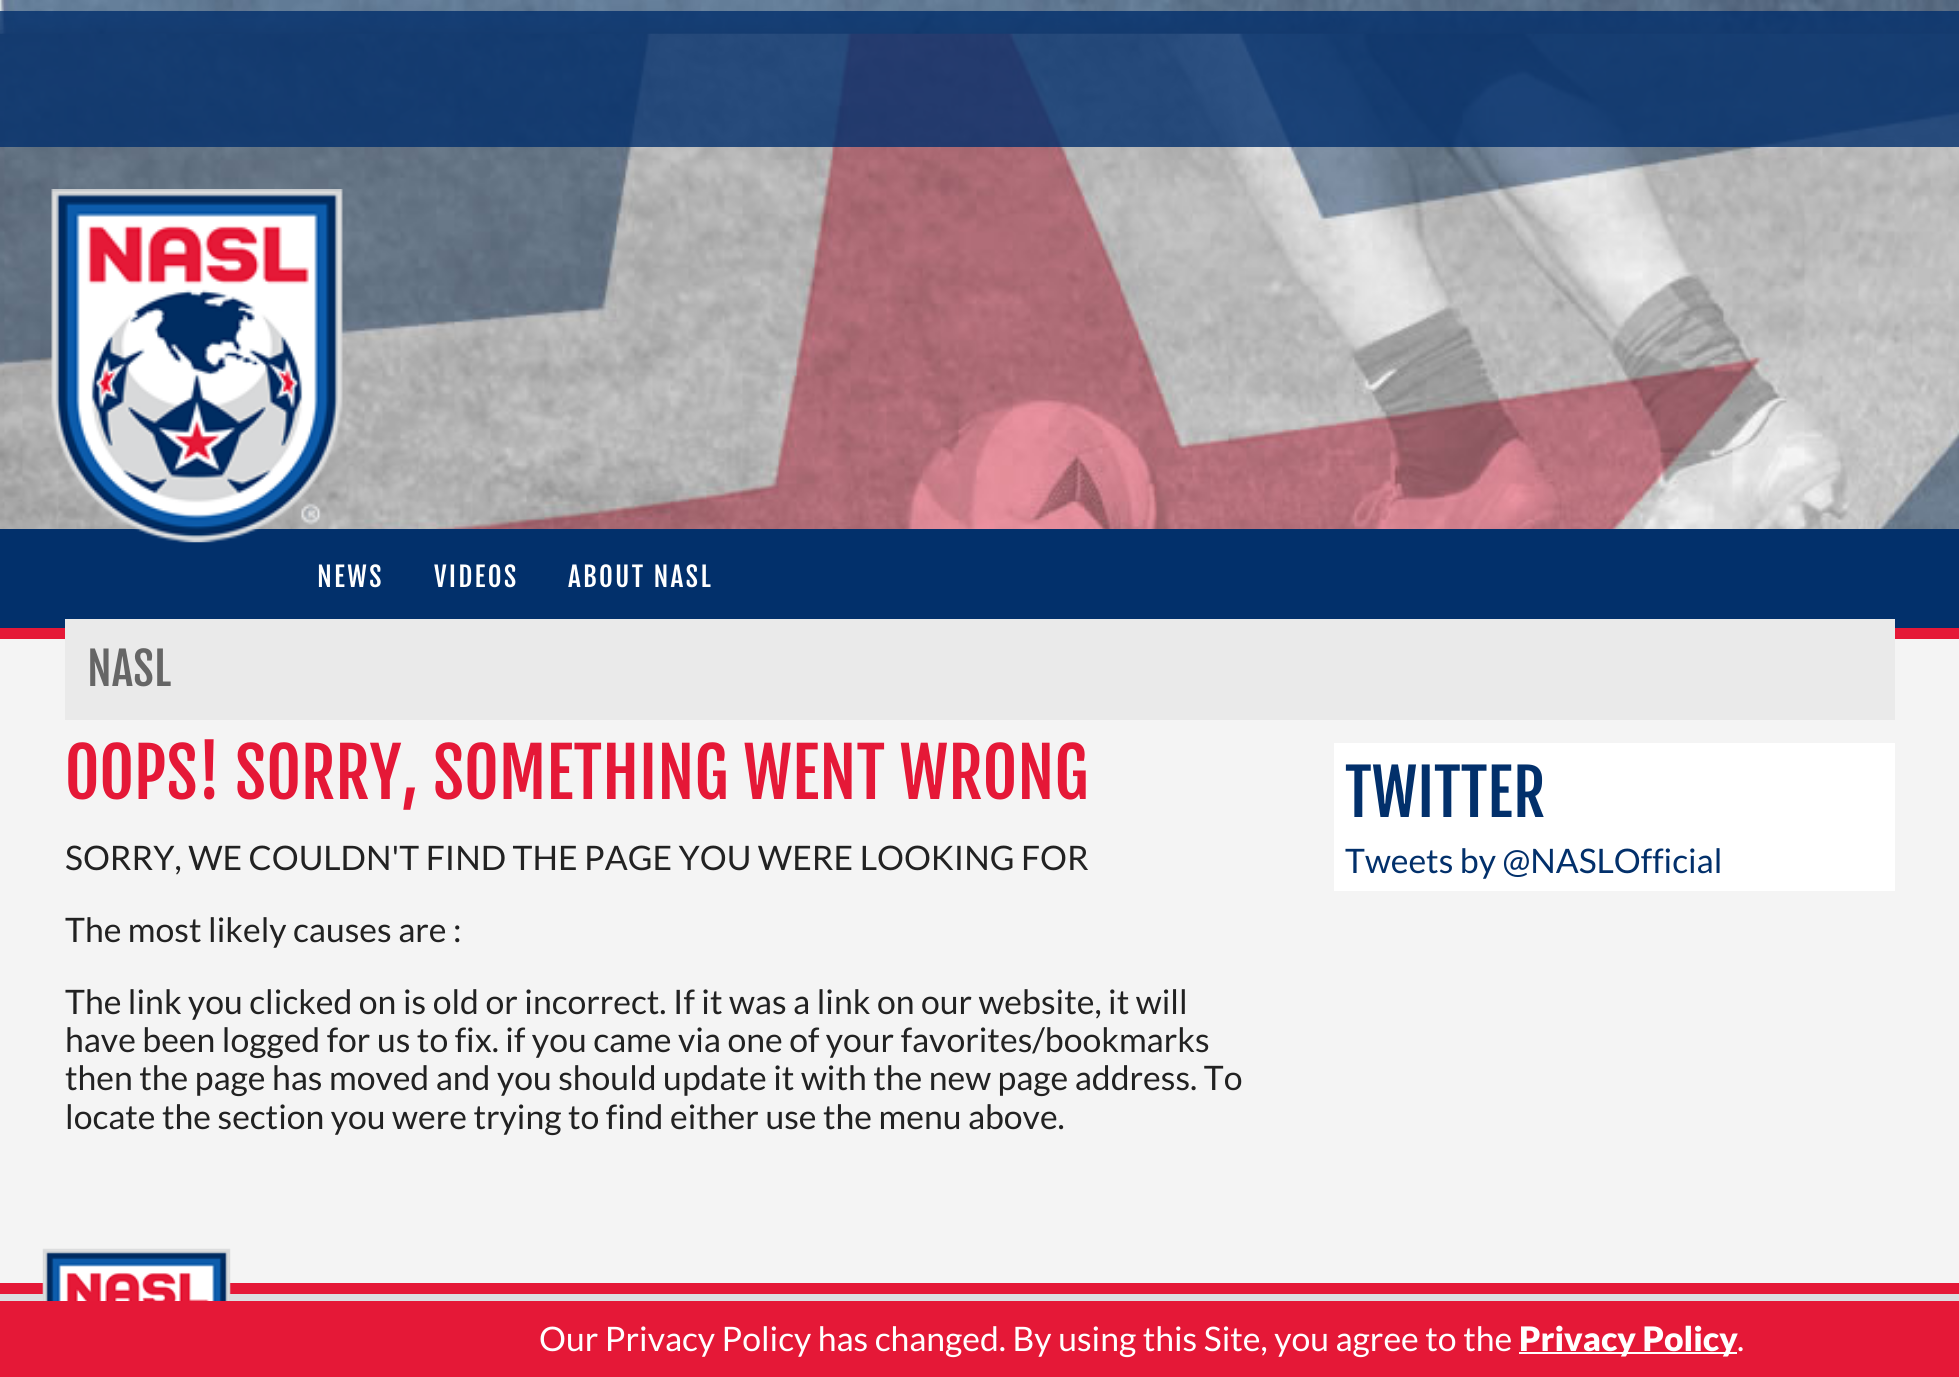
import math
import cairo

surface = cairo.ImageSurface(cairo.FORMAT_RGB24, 1959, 1377)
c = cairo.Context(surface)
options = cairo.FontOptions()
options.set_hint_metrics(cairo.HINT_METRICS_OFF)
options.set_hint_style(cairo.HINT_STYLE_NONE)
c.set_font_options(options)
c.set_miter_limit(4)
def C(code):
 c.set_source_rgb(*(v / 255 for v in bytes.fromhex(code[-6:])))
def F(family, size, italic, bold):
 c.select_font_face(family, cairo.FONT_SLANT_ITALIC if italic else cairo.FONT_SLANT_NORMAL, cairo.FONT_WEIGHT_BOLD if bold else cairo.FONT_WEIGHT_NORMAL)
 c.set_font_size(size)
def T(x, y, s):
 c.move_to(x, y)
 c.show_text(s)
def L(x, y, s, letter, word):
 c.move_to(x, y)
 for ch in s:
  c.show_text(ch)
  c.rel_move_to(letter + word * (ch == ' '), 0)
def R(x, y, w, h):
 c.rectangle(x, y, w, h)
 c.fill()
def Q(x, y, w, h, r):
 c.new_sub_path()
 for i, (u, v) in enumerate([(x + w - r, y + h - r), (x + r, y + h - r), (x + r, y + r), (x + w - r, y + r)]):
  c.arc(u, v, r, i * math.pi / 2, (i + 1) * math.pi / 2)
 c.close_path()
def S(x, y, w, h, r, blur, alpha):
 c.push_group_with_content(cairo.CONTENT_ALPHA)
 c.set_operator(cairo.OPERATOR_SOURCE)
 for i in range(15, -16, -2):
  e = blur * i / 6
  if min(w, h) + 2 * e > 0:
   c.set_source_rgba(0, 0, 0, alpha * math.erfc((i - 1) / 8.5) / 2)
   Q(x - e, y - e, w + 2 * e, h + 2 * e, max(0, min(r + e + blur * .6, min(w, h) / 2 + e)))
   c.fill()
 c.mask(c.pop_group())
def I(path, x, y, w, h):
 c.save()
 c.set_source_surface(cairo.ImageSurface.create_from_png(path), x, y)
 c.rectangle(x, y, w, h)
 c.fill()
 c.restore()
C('ffffff')
c.paint()
I('1.png',0,0,1959,34)
C('666666')
S(0,34,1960,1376,0,11,1)
C('dcdee0')
R(0,1294,1959,7)
I('2.png',0,33,1959,496)
c.set_source_rgba(0.008,0.184,0.42,0.8)
R(0,11,1959,136)
C('02306b')
R(0,529,1959,99)
I('3.png',51,189,292,354)
C('e51837')
R(0,628,1959,11)
F('Fjalla One',27,0,0)
C('ffffff')
L(317,587,'NEWS',2.25,0)
L(434,587,'VIDEOS',2.25,0)
L(568,587,'ABOUT NASL',2.25,0)
C('f4f4f4')
R(0,639,1959,644)
C('eaeaea')
R(65,619,1830,101)
F('Fjalla One',45,0,0)
C('666666')
T(87,686,'NASL')
F('Fjalla One',67.5,0,0)
C('e51837')
T(65,799,'OOPS! SORRY, SOMETHING WENT WRONG')
F('Lato',33.75,0,0)
C('222222')
T(65,870,'SORRY, WE COULDN\'T FIND THE PAGE YOU WERE LOOKING FOR')
T(65,942,'The most likely causes are :')
T(65,1014,'The link you clicked on is old or incorrect. If it was a link on our website, it will')
T(65,1052,'have been logged for us to fix. if you came via one of your favorites/bookmarks')
T(65,1090,'then the page has moved and you should update it with the new page address. To')
T(65,1129,'locate the section you were trying to find either use the menu above.')
C('ffffff')
R(1334,743,561,148)
F('Fjalla One',63,0,0)
C('02306b')
T(1345,817,'TWITTER')
F('Lato',33.75,0,0)
T(1345,873,'Tweets by @NASLOfficial')
C('e51837')
R(0,1283,1959,11)
I('4.png',42,1248,189,53)
R(0,1301,1959,76)
C('ffffff')
T(539,1351,'Our Privacy Policy has changed. By using this Site, you agree to the')
R(1519,1352,218,2)
F('Lato Black',33.75,0,0)
T(1519,1351,'Privacy Policy')
F('Lato',33.75,0,0)
T(1737,1351,'.')
surface.write_to_png('o.png')
